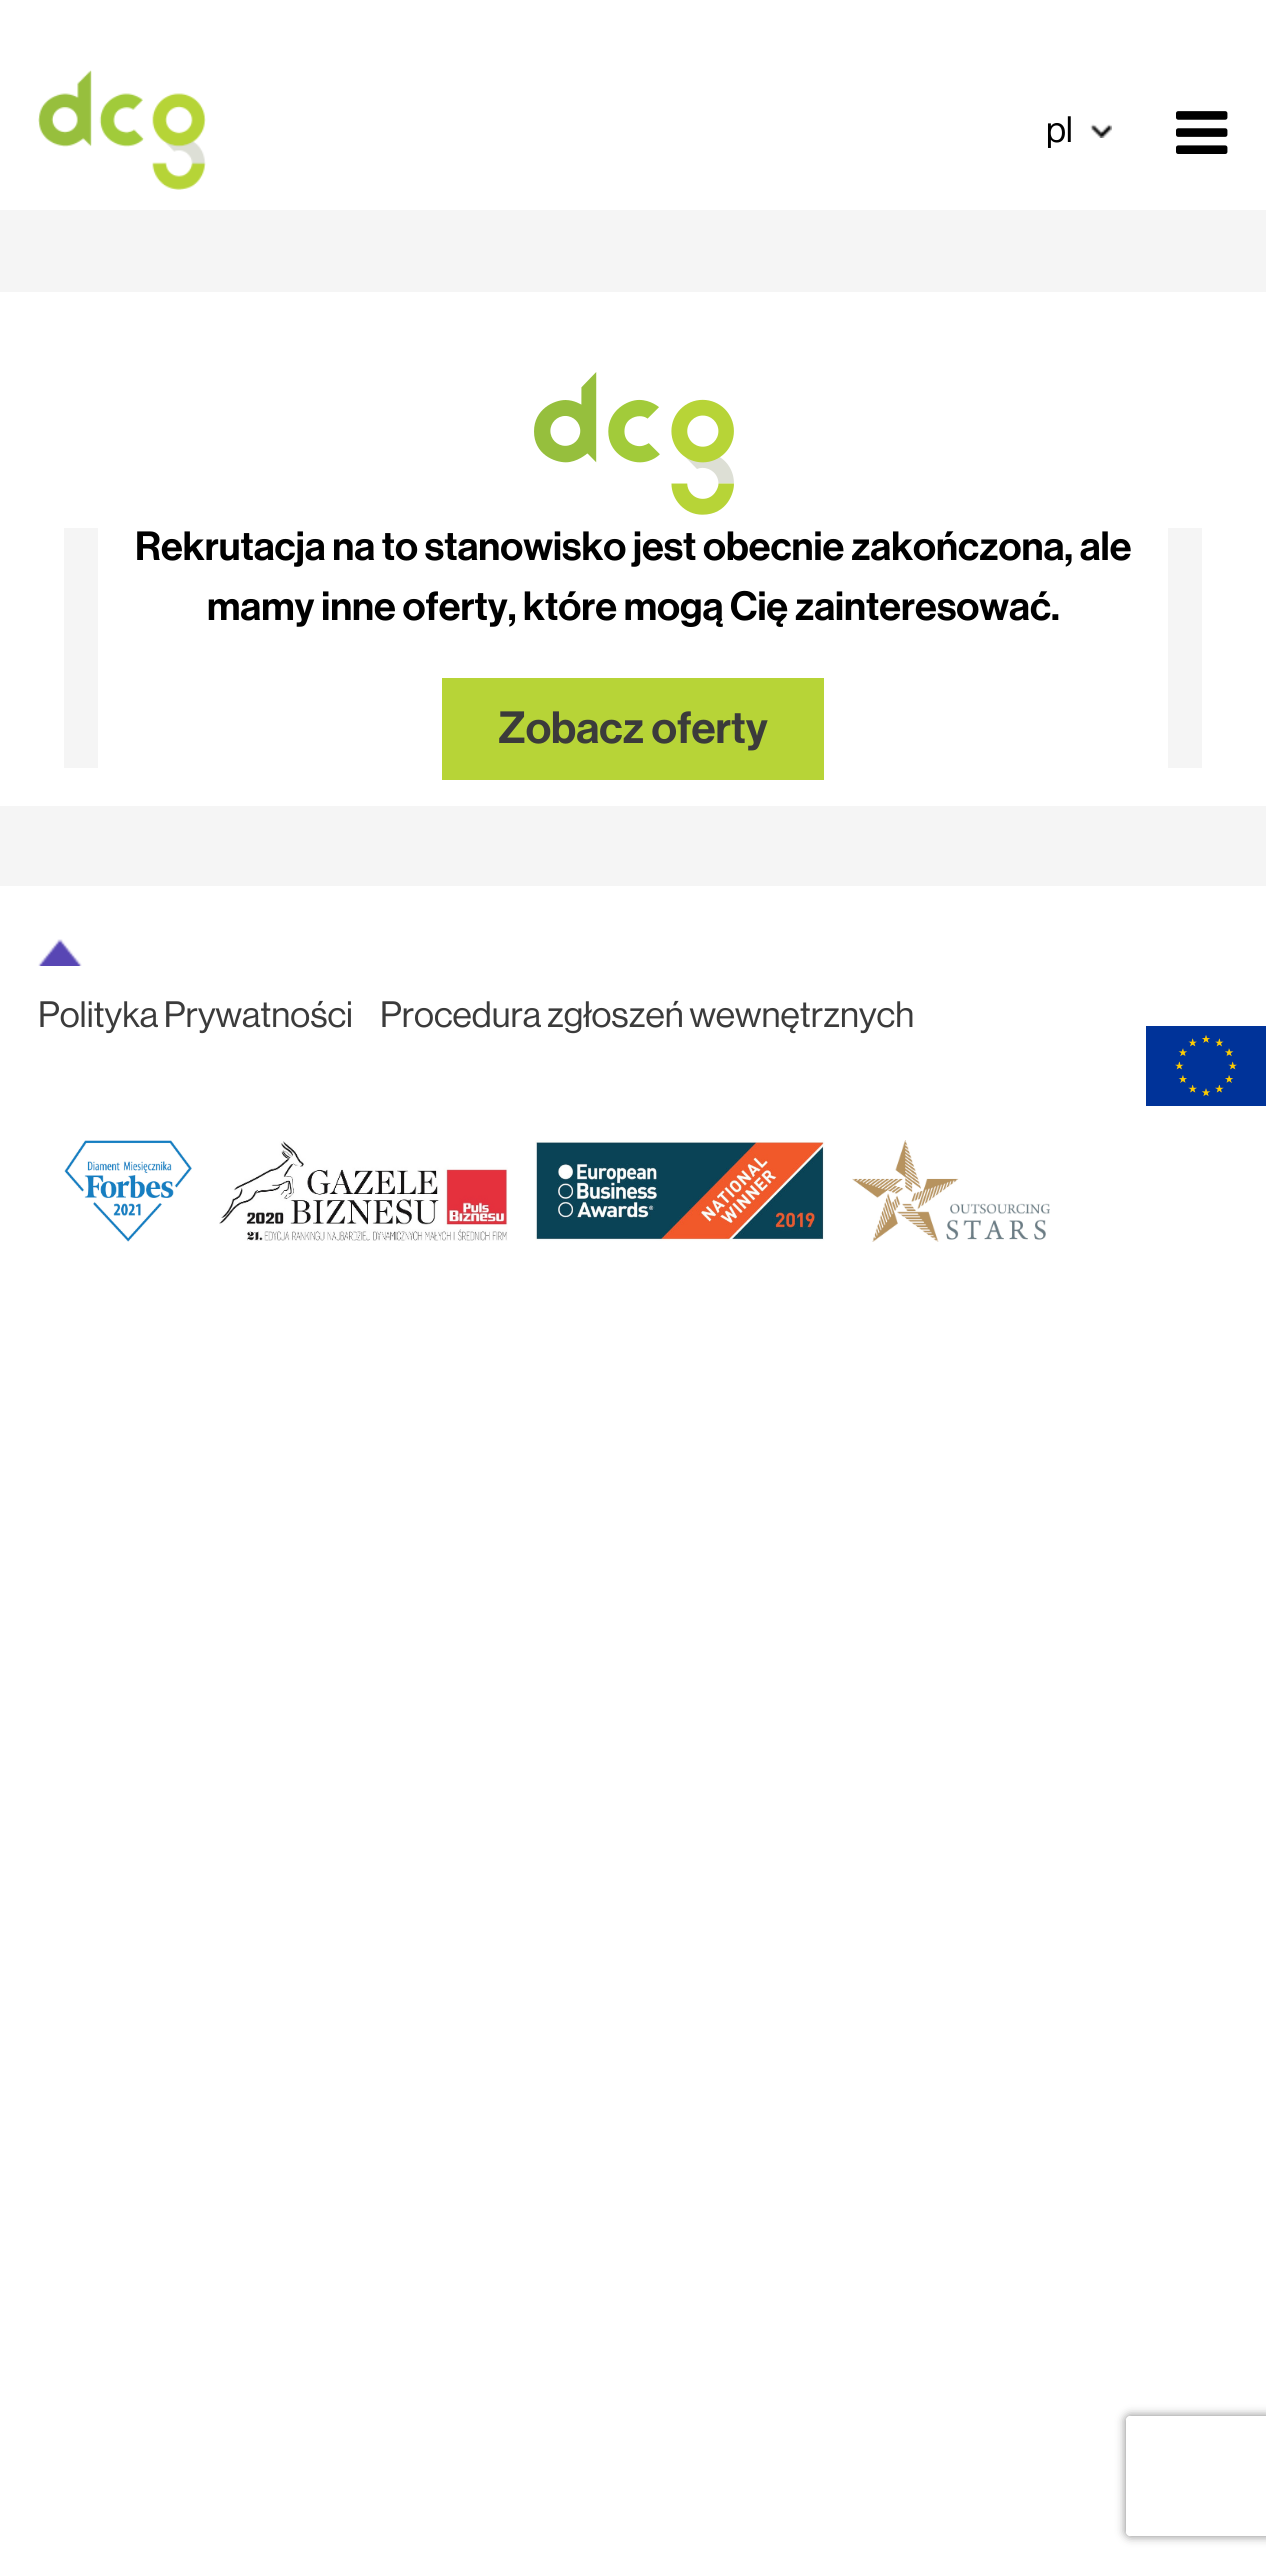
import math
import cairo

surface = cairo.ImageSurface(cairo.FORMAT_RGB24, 1266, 2564)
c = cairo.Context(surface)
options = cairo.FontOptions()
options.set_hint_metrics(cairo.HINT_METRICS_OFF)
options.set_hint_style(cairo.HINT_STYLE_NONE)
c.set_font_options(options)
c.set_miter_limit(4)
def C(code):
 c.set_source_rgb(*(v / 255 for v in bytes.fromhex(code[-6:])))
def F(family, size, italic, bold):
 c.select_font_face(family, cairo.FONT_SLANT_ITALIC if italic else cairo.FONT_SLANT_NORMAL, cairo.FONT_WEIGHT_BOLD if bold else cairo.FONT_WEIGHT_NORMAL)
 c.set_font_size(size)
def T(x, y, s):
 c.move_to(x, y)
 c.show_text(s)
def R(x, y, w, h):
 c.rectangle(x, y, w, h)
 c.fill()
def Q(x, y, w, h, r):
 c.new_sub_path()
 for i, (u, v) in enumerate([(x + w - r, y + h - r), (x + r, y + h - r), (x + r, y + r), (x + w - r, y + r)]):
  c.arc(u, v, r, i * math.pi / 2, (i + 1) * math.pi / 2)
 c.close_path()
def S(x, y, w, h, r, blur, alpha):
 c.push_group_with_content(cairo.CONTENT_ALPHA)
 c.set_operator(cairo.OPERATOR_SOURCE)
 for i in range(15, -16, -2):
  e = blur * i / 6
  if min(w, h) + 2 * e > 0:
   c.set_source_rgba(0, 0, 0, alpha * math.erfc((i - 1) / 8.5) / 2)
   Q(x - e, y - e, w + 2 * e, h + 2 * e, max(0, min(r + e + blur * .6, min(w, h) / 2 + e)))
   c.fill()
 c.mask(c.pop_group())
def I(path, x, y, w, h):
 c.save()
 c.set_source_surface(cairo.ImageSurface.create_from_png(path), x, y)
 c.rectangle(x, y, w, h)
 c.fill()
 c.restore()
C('ffffff')
c.paint()
I('1.png',38,70,168,120)
I('2.png',1090,124,22,14)
F('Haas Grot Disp',36,0,0)
C('000000')
T(1046,142,'pl')
I('3.png',1176,111,52,43)
C('f5f5f5')
R(0,210,1266,676)
C('ffffff')
R(0,292,1266,514)
I('4.png',534,372,200,143)
C('f5f5f5')
R(64,528,1138,240)
C('ffffff')
R(98,528,1070,240)
F('Haas Grot Disp Medium',40,0,0)
C('000000')
T(135,560,'Rekrutacja na to stanowisko jest obecnie zakończona, ale')
T(207,620,'mamy inne oferty, które mogą Cię zainteresować.')
C('b7d437')
R(442,678,382,102)
F('Haas Grot Disp Medium',44.25,0,0)
C('3b3b3b')
T(498,743,'Zobacz oferty')
I('5.png',38,939,44,27)
F('Haas Grot Disp',36,0,0)
T(38,1027,'Polityka Prywatności')
T(380,1027,'Procedura zgłoszeń wewnętrznych')
I('6.png',64,1140,128,102)
I('7.png',219,1141,289,100)
I('8.png',535,1140,290,101)
I('9.png',852,1140,198,102)
I('10.png',1146,1026,120,80)
c.save()
c.set_fill_rule(cairo.FILL_RULE_EVEN_ODD)
c.new_path()
c.move_to(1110,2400)
c.line_to(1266,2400)
c.line_to(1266,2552)
c.line_to(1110,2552)
c.close_path()
c.move_to(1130,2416)
c.line_to(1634,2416)
c.curve_to(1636,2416,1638,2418,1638,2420)
c.line_to(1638,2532)
c.curve_to(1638,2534,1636,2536,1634,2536)
c.line_to(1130,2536)
c.curve_to(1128,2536,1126,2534,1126,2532)
c.line_to(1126,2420)
c.curve_to(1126,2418,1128,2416,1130,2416)
c.close_path()
c.clip()
C('808080')
S(1126,2416,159,120,4,5,1)
c.restore()
surface.write_to_png('o.png')
